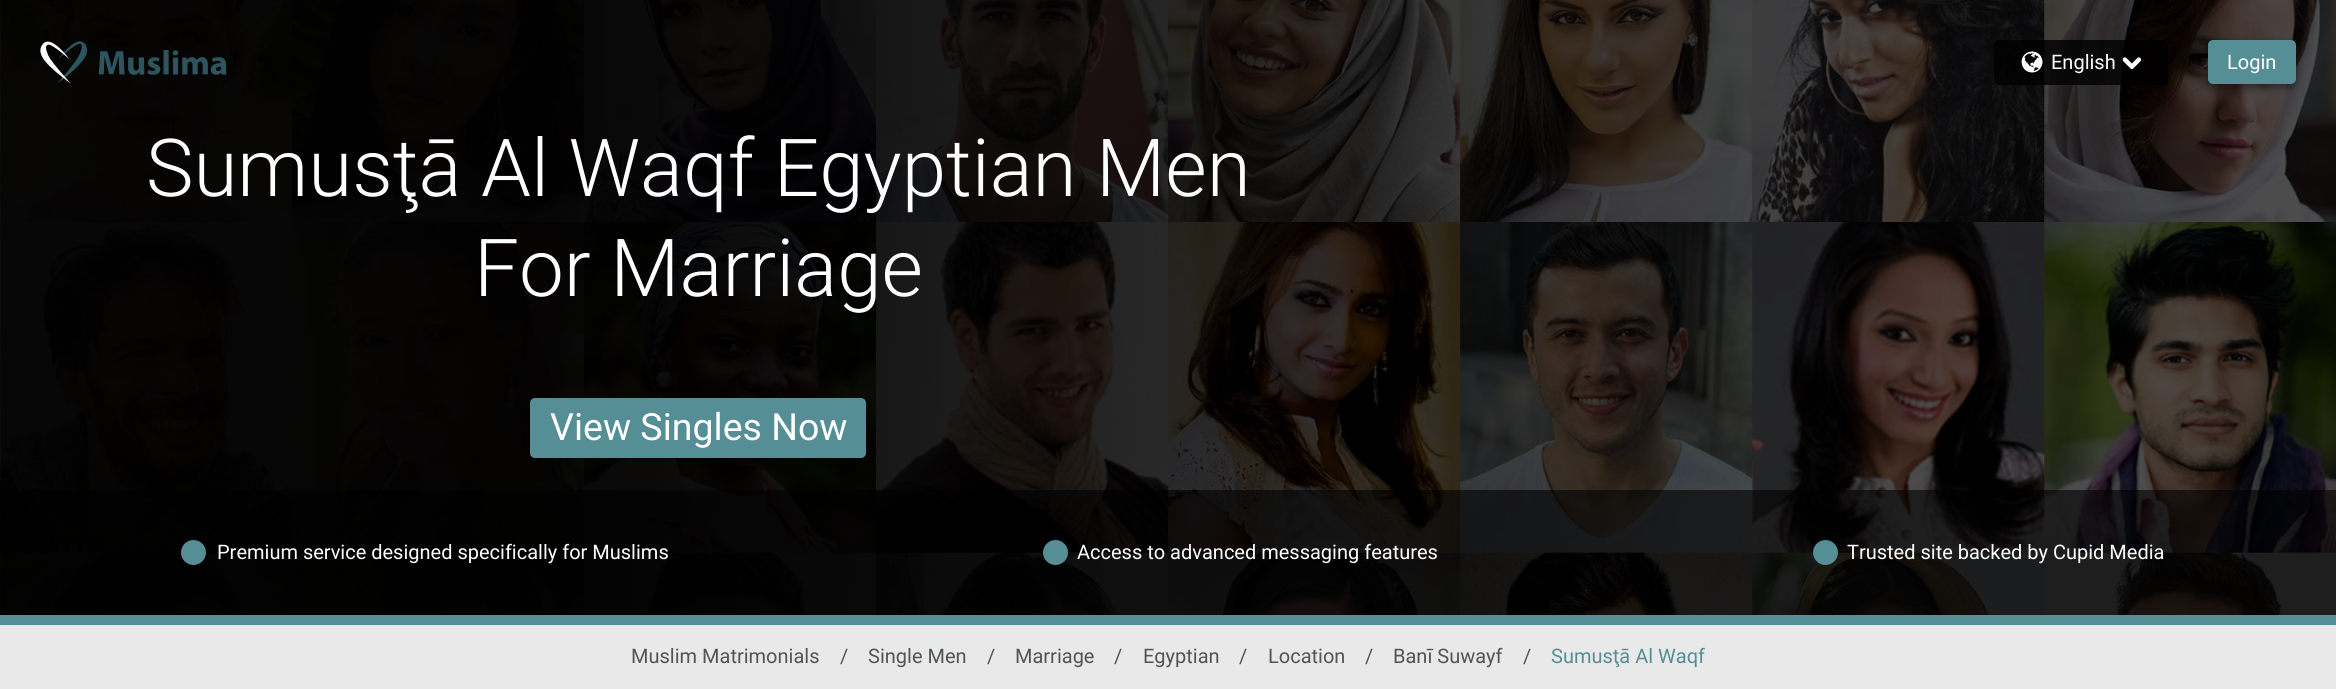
import math
import cairo

surface = cairo.ImageSurface(cairo.FORMAT_RGB24, 2336, 689)
c = cairo.Context(surface)
options = cairo.FontOptions()
options.set_hint_metrics(cairo.HINT_METRICS_OFF)
options.set_hint_style(cairo.HINT_STYLE_NONE)
c.set_font_options(options)
c.set_miter_limit(4)
def C(code):
 c.set_source_rgb(*(v / 255 for v in bytes.fromhex(code[-6:])))
def F(family, size, italic, bold):
 c.select_font_face(family, cairo.FONT_SLANT_ITALIC if italic else cairo.FONT_SLANT_NORMAL, cairo.FONT_WEIGHT_BOLD if bold else cairo.FONT_WEIGHT_NORMAL)
 c.set_font_size(size)
def T(x, y, s):
 c.move_to(x, y)
 c.show_text(s)
def R(x, y, w, h):
 c.rectangle(x, y, w, h)
 c.fill()
def Q(x, y, w, h, r):
 c.new_sub_path()
 for i, (u, v) in enumerate([(x + w - r, y + h - r), (x + r, y + h - r), (x + r, y + r), (x + w - r, y + r)]):
  c.arc(u, v, r, i * math.pi / 2, (i + 1) * math.pi / 2)
 c.close_path()
def S(x, y, w, h, r, blur, alpha):
 c.push_group_with_content(cairo.CONTENT_ALPHA)
 c.set_operator(cairo.OPERATOR_SOURCE)
 for i in range(15, -16, -2):
  e = blur * i / 6
  if min(w, h) + 2 * e > 0:
   c.set_source_rgba(0, 0, 0, alpha * math.erfc((i - 1) / 8.5) / 2)
   Q(x - e, y - e, w + 2 * e, h + 2 * e, max(0, min(r + e + blur * .6, min(w, h) / 2 + e)))
   c.fill()
 c.mask(c.pop_group())
def I(path, x, y, w, h):
 c.save()
 c.set_source_surface(cairo.ImageSurface.create_from_png(path), x, y)
 c.rectangle(x, y, w, h)
 c.fill()
 c.restore()
C('568e96')
c.paint()
I('5.png',0,0,2336,615)
I('1.png',40,41,48,43)
I('2.png',98,50,129,25)
c.set_source_rgba(0,0,0,0.8)
Q(1994,40,174,45,5)
c.fill()
I('3.png',2021,51,22,22)
F('Roboto',20,0,0)
C('ffffff')
T(2051,69,'English')
I('4.png',2122,57,19,12)
C('000000')
S(2208,44,88,44,5,4,.4)
C('568e96')
Q(2208,40,88,44,5)
c.fill()
C('ffffff')
T(2227,69,'Login')
F('Roboto Light',80,0,0)
T(146,196,'Sumusţā Al Waqf Egyptian Men')
T(474,296,'For Marriage')
C('568e96')
Q(530,398,336,60,5)
c.fill()
F('Roboto',37.5,0,0)
C('ffffff')
T(550,440,'View Singles Now')
c.set_source_rgba(0,0,0,0.6)
R(0,490,2336,125)
C('568e96')
c.new_path()
c.arc(193.5,552.5,12.5,0,2 * math.pi)
c.fill()
F('Roboto',20,0,0)
C('ffffff')
T(217,559,'Premium service designed specifically for Muslims')
C('568e96')
c.new_path()
c.arc(1055.5,552.5,12.5,0,2 * math.pi)
c.fill()
C('ffffff')
T(1077,559,'Access to advanced messaging features')
C('568e96')
c.new_path()
c.arc(1825.5,552.5,12.5,0,2 * math.pi)
c.fill()
C('ffffff')
T(1847,559,'Trusted site backed by Cupid Media')
C('e9e9e9')
R(0,625,2336,64)
C('505656')
T(631,663,'Muslim Matrimonials')
T(840,663,'/')
T(868,663,'Single Men')
T(987,663,'/')
T(1015,663,'Marriage')
T(1114,663,'/')
T(1143,663,'Egyptian')
T(1239,663,'/')
T(1268,663,'Location')
T(1365,663,'/')
T(1393,663,'Banī Suwayf')
T(1523,663,'/')
C('568e96')
T(1551,663,'Sumusţā Al Waqf')
surface.write_to_png('o.png')
